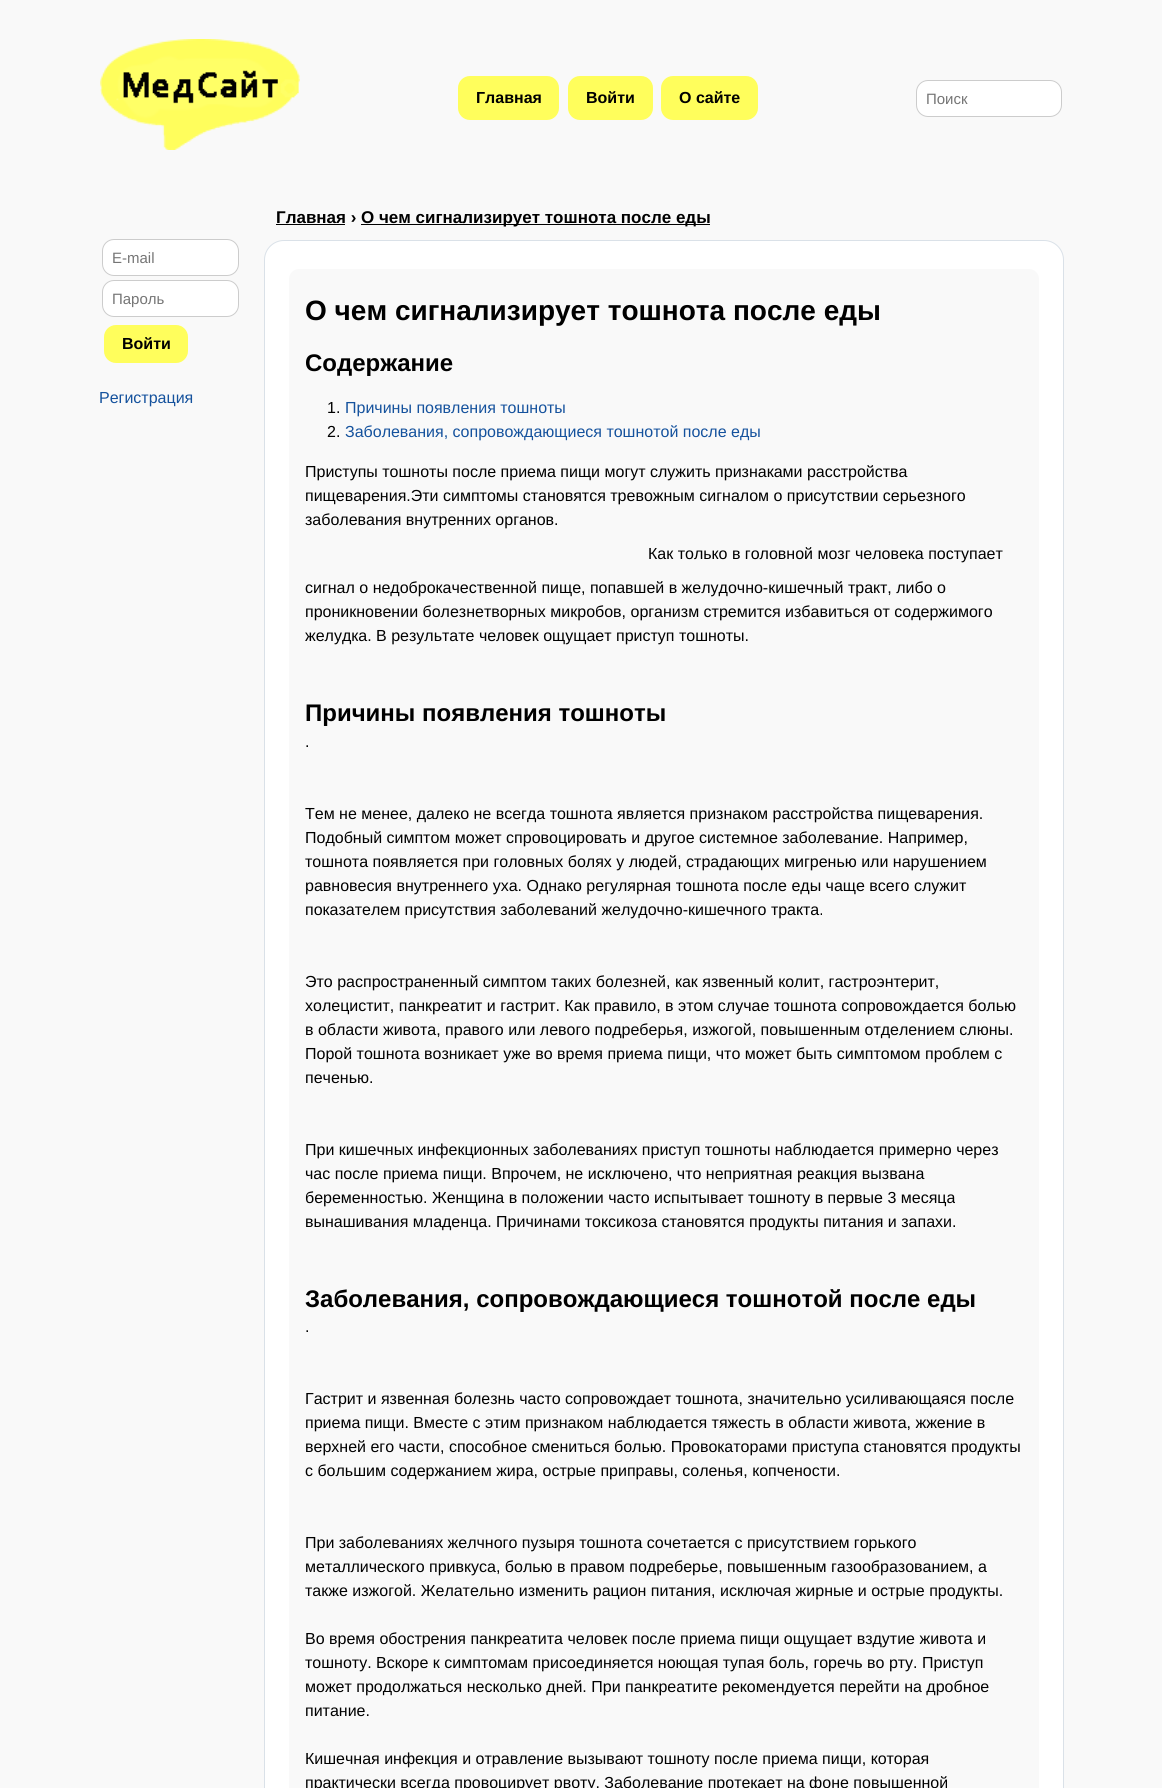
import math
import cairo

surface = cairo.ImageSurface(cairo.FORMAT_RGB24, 1162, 1788)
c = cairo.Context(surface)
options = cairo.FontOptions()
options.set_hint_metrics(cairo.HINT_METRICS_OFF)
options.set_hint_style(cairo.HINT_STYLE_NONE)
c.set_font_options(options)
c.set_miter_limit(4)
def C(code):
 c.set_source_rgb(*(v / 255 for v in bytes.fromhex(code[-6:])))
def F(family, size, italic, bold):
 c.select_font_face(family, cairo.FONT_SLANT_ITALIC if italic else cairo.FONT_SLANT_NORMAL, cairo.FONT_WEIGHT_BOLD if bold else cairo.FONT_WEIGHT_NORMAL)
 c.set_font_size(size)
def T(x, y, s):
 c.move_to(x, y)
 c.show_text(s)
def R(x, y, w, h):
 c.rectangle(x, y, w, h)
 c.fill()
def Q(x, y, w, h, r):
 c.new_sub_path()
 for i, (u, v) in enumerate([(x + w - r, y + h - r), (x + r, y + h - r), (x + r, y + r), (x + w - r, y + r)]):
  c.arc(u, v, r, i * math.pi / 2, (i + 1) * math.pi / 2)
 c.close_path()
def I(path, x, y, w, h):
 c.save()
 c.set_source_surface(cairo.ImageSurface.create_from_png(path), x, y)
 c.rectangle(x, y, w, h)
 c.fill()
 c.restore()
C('f9f9f9')
c.paint()
I('1.png',100,39,200,111)
C('fffe5c')
Q(458,76,101,44,12)
c.fill()
F('Liberation Sans',16,0,1)
C('000000')
T(476,103,'Главная')
C('fffe5c')
Q(568,76,85,44,12)
c.fill()
C('000000')
T(586,103,'Войти')
C('fffe5c')
Q(661,76,97,44,12)
c.fill()
C('000000')
T(679,103,'О сайте')
C('ffffff')
Q(916.5,80.5,145,36,11.5)
c.fill_preserve()
C('cccccc')
c.set_line_width(1)
c.stroke()
F('Liberation Sans',15,0,0)
C('757575')
T(926,104,'Поиск')
C('ffffff')
Q(102.5,239.5,136,36,11.5)
c.fill_preserve()
C('cccccc')
c.stroke()
C('757575')
T(112,263,'E-mail')
C('ffffff')
Q(102.5,280.5,136,36,11.5)
c.fill_preserve()
C('cccccc')
c.stroke()
C('757575')
T(112,304,'Пароль')
C('fffe5c')
Q(104,325,84,38,12)
c.fill()
F('Liberation Sans',16,0,1)
C('000000')
T(122,349,'Войти')
F('Liberation Sans',16,0,0)
C('15529d')
T(99,403,'Регистрация')
F('Liberation Sans',17,0,1)
C('000000')
T(276,223,'Главная ›')
R(276,224,69,1)
R(361,224,349,1)
T(361,223,'О чем сигнализирует тошнота после еды')
C('ffffff')
Q(264.5,240.5,799,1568,19.5)
c.fill_preserve()
C('dae1e8')
c.stroke()
C('f9f9f9')
Q(289,269,750,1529,10)
c.fill()
F('Liberation Sans',28,0,1)
C('000000')
T(305,320,'О чем сигнализирует тошнота после еды')
F('Liberation Sans',24,0,1)
T(305,371,'Содержание')
F('Liberation Sans',16,0,0)
T(327,413,'1.')
C('15529d')
T(345,413,'Причины появления тошноты')
C('000000')
T(327,437,'2.')
C('15529d')
T(345,437,'Заболевания, сопровождающиеся тошнотой после еды')
C('000000')
T(305,477,'Приступы тошноты после приема пищи могут служить признаками расстройства')
T(305,501,'пищеварения.Эти симптомы становятся тревожным сигналом о присутствии серьезного')
T(305,525,'заболевания внутренних органов.')
T(648,559,'Как только в головной мозг человека поступает')
T(305,593,'сигнал о недоброкачественной пище, попавшей в желудочно-кишечный тракт, либо о')
T(305,617,'проникновении болезнетворных микробов, организм стремится избавиться от содержимого')
T(305,641,'желудка. В результате человек ощущает приступ тошноты.')
F('Liberation Sans',24,0,1)
T(305,721,'Причины появления тошноты')
F('Liberation Sans',16,0,0)
T(305,747,'.')
T(305,819,'Тем не менее, далеко не всегда тошнота является признаком расстройства пищеварения.')
T(305,843,'Подобный симптом может спровоцировать и другое системное заболевание. Например,')
T(305,867,'тошнота появляется при головных болях у людей, страдающих мигренью или нарушением')
T(305,891,'равновесия внутреннего уха. Однако регулярная тошнота после еды чаще всего служит')
T(305,915,'показателем присутствия заболеваний желудочно-кишечного тракта.')
T(305,987,'Это распространенный симптом таких болезней, как язвенный колит, гастроэнтерит,')
T(305,1011,'холецистит, панкреатит и гастрит. Как правило, в этом случае тошнота сопровождается болью')
T(305,1035,'в области живота, правого или левого подреберья, изжогой, повышенным отделением слюны.')
T(305,1059,'Порой тошнота возникает уже во время приема пищи, что может быть симптомом проблем с')
T(305,1083,'печенью.')
T(305,1155,'При кишечных инфекционных заболеваниях приступ тошноты наблюдается примерно через')
T(305,1179,'час после приема пищи. Впрочем, не исключено, что неприятная реакция вызвана')
T(305,1203,'беременностью. Женщина в положении часто испытывает тошноту в первые 3 месяца')
T(305,1227,'вынашивания младенца. Причинами токсикоза становятся продукты питания и запахи.')
F('Liberation Sans',24,0,1)
T(305,1307,'Заболевания, сопровождающиеся тошнотой после еды')
F('Liberation Sans',16,0,0)
T(305,1332,'.')
T(305,1404,'Гастрит и язвенная болезнь часто сопровождает тошнота, значительно усиливающаяся после')
T(305,1428,'приема пищи. Вместе с этим признаком наблюдается тяжесть в области живота, жжение в')
T(305,1452,'верхней его части, способное смениться болью. Провокаторами приступа становятся продукты')
T(305,1476,'с большим содержанием жира, острые приправы, соленья, копчености.')
T(305,1548,'При заболеваниях желчного пузыря тошнота сочетается с присутствием горького')
T(305,1572,'металлического привкуса, болью в правом подреберье, повышенным газообразованием, а')
T(305,1596,'также изжогой. Желательно изменить рацион питания, исключая жирные и острые продукты.')
T(305,1644,'Во время обострения панкреатита человек после приема пищи ощущает вздутие живота и')
T(305,1668,'тошноту. Вскоре к симптомам присоединяется ноющая тупая боль, горечь во рту. Приступ')
T(305,1692,'может продолжаться несколько дней. При панкреатите рекомендуется перейти на дробное')
T(305,1716,'питание.')
T(305,1764,'Кишечная инфекция и отравление вызывают тошноту после приема пищи, которая')
T(305,1788,'практически всегда провоцирует рвоту. Заболевание протекает на фоне повышенной')
surface.write_to_png('o.png')
